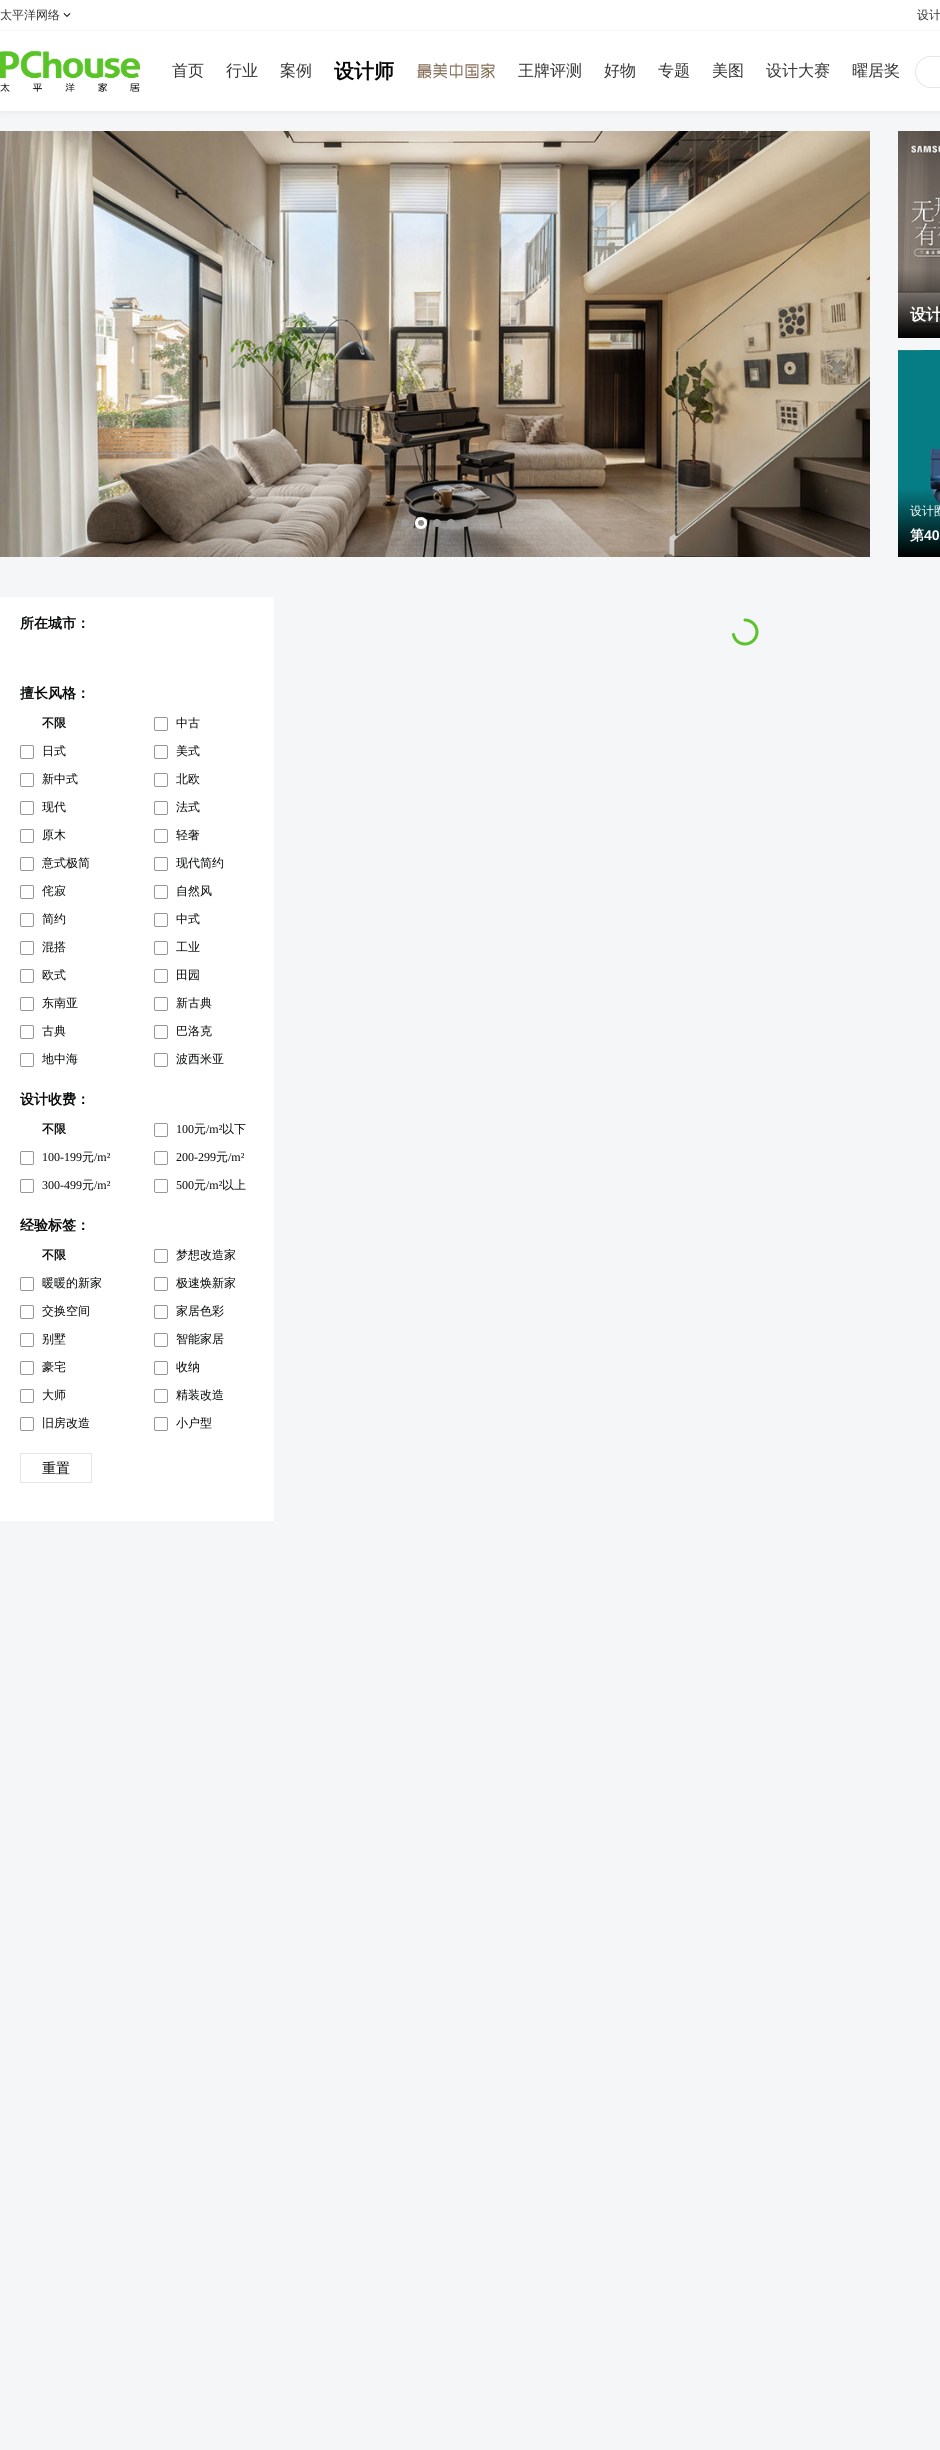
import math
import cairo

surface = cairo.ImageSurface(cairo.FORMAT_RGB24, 940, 2450)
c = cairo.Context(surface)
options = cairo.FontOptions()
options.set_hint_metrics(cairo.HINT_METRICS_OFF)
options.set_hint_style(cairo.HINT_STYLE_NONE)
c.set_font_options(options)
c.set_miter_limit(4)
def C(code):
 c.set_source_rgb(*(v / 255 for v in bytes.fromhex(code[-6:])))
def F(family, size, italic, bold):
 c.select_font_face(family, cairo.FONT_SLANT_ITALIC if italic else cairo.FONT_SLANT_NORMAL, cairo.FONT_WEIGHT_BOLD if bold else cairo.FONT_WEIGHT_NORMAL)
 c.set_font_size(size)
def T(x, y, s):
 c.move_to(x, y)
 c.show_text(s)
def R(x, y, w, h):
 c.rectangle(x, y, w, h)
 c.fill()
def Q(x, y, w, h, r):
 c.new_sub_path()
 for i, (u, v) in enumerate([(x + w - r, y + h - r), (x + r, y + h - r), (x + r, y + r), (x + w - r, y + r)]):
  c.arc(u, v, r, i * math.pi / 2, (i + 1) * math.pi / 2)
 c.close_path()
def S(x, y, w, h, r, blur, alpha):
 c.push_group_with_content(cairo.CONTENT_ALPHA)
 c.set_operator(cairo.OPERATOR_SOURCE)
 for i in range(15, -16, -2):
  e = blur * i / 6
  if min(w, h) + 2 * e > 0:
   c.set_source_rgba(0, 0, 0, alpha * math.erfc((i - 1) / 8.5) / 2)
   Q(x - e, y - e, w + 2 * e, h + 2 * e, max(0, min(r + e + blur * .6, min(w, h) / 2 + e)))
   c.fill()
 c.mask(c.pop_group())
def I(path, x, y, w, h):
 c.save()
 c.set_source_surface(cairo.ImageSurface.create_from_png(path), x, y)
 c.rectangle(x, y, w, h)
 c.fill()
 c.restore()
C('f5f6f8')
c.paint()
C('000000')
S(0,2,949,111,0,3,.05)
C('ffffff')
R(0,0,940,111)
C('f6f6f6')
R(0,30,940,1)
F('WenQuanYi Zen Hei Medium',12,0,0)
C('333333')
T(0,19,'太平洋网络')
I('1.png',63,13,8,4)
T(917,19,'设计')
I('2.png',0,50,140,42)
F('WenQuanYi Zen Hei Medium',16,0,0)
T(172,76,'首页')
T(226,76,'行业')
T(280,76,'案例')
F('WenQuanYi Zen Hei',20,0,1)
C('030605')
T(334,78,'设计师')
I('3.png',417,63,78,16)
F('WenQuanYi Zen Hei Medium',16,0,0)
C('333333')
T(518,76,'王牌评测')
T(604,76,'好物')
T(658,76,'专题')
T(712,76,'美图')
T(766,76,'设计大赛')
T(852,76,'曜居奖')
Q(915.5,56.5,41,31,15.5)
C('e5e5e5')
c.set_line_width(1)
c.stroke()
I('4.png',0,131,870,426)
C('999999')
c.arc(405,523,4,0,2 * math.pi)
c.fill()
c.arc(421,523,4.5,0,2 * math.pi)
C('ffffff')
c.set_line_width(3)
c.stroke()
C('999999')
c.arc(437,523,4,0,2 * math.pi)
c.fill()
c.arc(451,523,4,0,2 * math.pi)
c.fill()
c.arc(465,523,4,0,2 * math.pi)
c.fill()
I('5.png',898,131,42,207)
F('WenQuanYi Zen Hei',16,0,1)
C('ffffff')
T(910,320,'设计')
I('6.png',898,350,42,207)
F('WenQuanYi Zen Hei Medium',12,0,0)
T(910,515,'设计圈')
F('WenQuanYi Zen Hei',14,0,1)
T(910,540,'第')
F('Liberation Sans',14,0,1)
T(924,540,'40')
R(0,597,274,924)
F('WenQuanYi Zen Hei',14,0,1)
C('030605')
T(20,628,'所在城市：')
T(20,698,'擅长风格：')
F('WenQuanYi Zen Hei',12,0,1)
T(42,727,'不限')
Q(154.5,717.5,13,13,1.5)
C('979797')
c.set_line_width(1)
c.stroke()
F('WenQuanYi Zen Hei Medium',12,0,0)
C('030605')
T(176,727,'中古')
Q(20.5,745.5,13,13,1.5)
C('979797')
c.stroke()
C('030605')
T(42,755,'日式')
Q(154.5,745.5,13,13,1.5)
C('979797')
c.stroke()
C('030605')
T(176,755,'美式')
Q(20.5,773.5,13,13,1.5)
C('979797')
c.stroke()
C('030605')
T(42,783,'新中式')
Q(154.5,773.5,13,13,1.5)
C('979797')
c.stroke()
C('030605')
T(176,783,'北欧')
Q(20.5,801.5,13,13,1.5)
C('979797')
c.stroke()
C('030605')
T(42,811,'现代')
Q(154.5,801.5,13,13,1.5)
C('979797')
c.stroke()
C('030605')
T(176,811,'法式')
Q(20.5,829.5,13,13,1.5)
C('979797')
c.stroke()
C('030605')
T(42,839,'原木')
Q(154.5,829.5,13,13,1.5)
C('979797')
c.stroke()
C('030605')
T(176,839,'轻奢')
Q(20.5,857.5,13,13,1.5)
C('979797')
c.stroke()
C('030605')
T(42,867,'意式极简')
Q(154.5,857.5,13,13,1.5)
C('979797')
c.stroke()
C('030605')
T(176,867,'现代简约')
Q(20.5,885.5,13,13,1.5)
C('979797')
c.stroke()
C('030605')
T(42,895,'侘寂')
Q(154.5,885.5,13,13,1.5)
C('979797')
c.stroke()
C('030605')
T(176,895,'自然风')
Q(20.5,913.5,13,13,1.5)
C('979797')
c.stroke()
C('030605')
T(42,923,'简约')
Q(154.5,913.5,13,13,1.5)
C('979797')
c.stroke()
C('030605')
T(176,923,'中式')
Q(20.5,941.5,13,13,1.5)
C('979797')
c.stroke()
C('030605')
T(42,951,'混搭')
Q(154.5,941.5,13,13,1.5)
C('979797')
c.stroke()
C('030605')
T(176,951,'工业')
Q(20.5,969.5,13,13,1.5)
C('979797')
c.stroke()
C('030605')
T(42,979,'欧式')
Q(154.5,969.5,13,13,1.5)
C('979797')
c.stroke()
C('030605')
T(176,979,'田园')
Q(20.5,997.5,13,13,1.5)
C('979797')
c.stroke()
C('030605')
T(42,1007,'东南亚')
Q(154.5,997.5,13,13,1.5)
C('979797')
c.stroke()
C('030605')
T(176,1007,'新古典')
Q(20.5,1025.5,13,13,1.5)
C('979797')
c.stroke()
C('030605')
T(42,1035,'古典')
Q(154.5,1025.5,13,13,1.5)
C('979797')
c.stroke()
C('030605')
T(176,1035,'巴洛克')
Q(20.5,1053.5,13,13,1.5)
C('979797')
c.stroke()
C('030605')
T(42,1063,'地中海')
Q(154.5,1053.5,13,13,1.5)
C('979797')
c.stroke()
C('030605')
T(176,1063,'波西米亚')
F('WenQuanYi Zen Hei',14,0,1)
T(20,1104,'设计收费：')
F('WenQuanYi Zen Hei',12,0,1)
T(42,1133,'不限')
Q(154.5,1123.5,13,13,1.5)
C('979797')
c.stroke()
F('Liberation Serif',12,0,0)
C('030605')
T(176,1133,'100')
F('WenQuanYi Zen Hei Medium',12,0,0)
T(194,1133,'元')
F('Liberation Serif',12,0,0)
T(206,1133,'/m²')
F('WenQuanYi Zen Hei Medium',12,0,0)
T(222,1133,'以下')
Q(20.5,1151.5,13,13,1.5)
C('979797')
c.stroke()
F('Liberation Serif',12,0,0)
C('030605')
T(42,1161,'100-199')
F('WenQuanYi Zen Hei Medium',12,0,0)
T(82,1161,'元')
F('Liberation Serif',12,0,0)
T(94,1161,'/m²')
Q(154.5,1151.5,13,13,1.5)
C('979797')
c.stroke()
C('030605')
T(176,1161,'200-299')
F('WenQuanYi Zen Hei Medium',12,0,0)
T(216,1161,'元')
F('Liberation Serif',12,0,0)
T(228,1161,'/m²')
Q(20.5,1179.5,13,13,1.5)
C('979797')
c.stroke()
C('030605')
T(42,1189,'300-499')
F('WenQuanYi Zen Hei Medium',12,0,0)
T(82,1189,'元')
F('Liberation Serif',12,0,0)
T(94,1189,'/m²')
Q(154.5,1179.5,13,13,1.5)
C('979797')
c.stroke()
C('030605')
T(176,1189,'500')
F('WenQuanYi Zen Hei Medium',12,0,0)
T(194,1189,'元')
F('Liberation Serif',12,0,0)
T(206,1189,'/m²')
F('WenQuanYi Zen Hei Medium',12,0,0)
T(222,1189,'以上')
F('WenQuanYi Zen Hei',14,0,1)
T(20,1230,'经验标签：')
F('WenQuanYi Zen Hei',12,0,1)
T(42,1259,'不限')
Q(154.5,1249.5,13,13,1.5)
C('979797')
c.stroke()
F('WenQuanYi Zen Hei Medium',12,0,0)
C('030605')
T(176,1259,'梦想改造家')
Q(20.5,1277.5,13,13,1.5)
C('979797')
c.stroke()
C('030605')
T(42,1287,'暖暖的新家')
Q(154.5,1277.5,13,13,1.5)
C('979797')
c.stroke()
C('030605')
T(176,1287,'极速焕新家')
Q(20.5,1305.5,13,13,1.5)
C('979797')
c.stroke()
C('030605')
T(42,1315,'交换空间')
Q(154.5,1305.5,13,13,1.5)
C('979797')
c.stroke()
C('030605')
T(176,1315,'家居色彩')
Q(20.5,1333.5,13,13,1.5)
C('979797')
c.stroke()
C('030605')
T(42,1343,'别墅')
Q(154.5,1333.5,13,13,1.5)
C('979797')
c.stroke()
C('030605')
T(176,1343,'智能家居')
Q(20.5,1361.5,13,13,1.5)
C('979797')
c.stroke()
C('030605')
T(42,1371,'豪宅')
Q(154.5,1361.5,13,13,1.5)
C('979797')
c.stroke()
C('030605')
T(176,1371,'收纳')
Q(20.5,1389.5,13,13,1.5)
C('979797')
c.stroke()
C('030605')
T(42,1399,'大师')
Q(154.5,1389.5,13,13,1.5)
C('979797')
c.stroke()
C('030605')
T(176,1399,'精装改造')
Q(20.5,1417.5,13,13,1.5)
C('979797')
c.stroke()
C('030605')
T(42,1427,'旧房改造')
Q(154.5,1417.5,13,13,1.5)
C('979797')
c.stroke()
C('030605')
T(176,1427,'小户型')
c.rectangle(20.5,1453.5,71,29)
C('e5e5e5')
c.stroke()
F('WenQuanYi Zen Hei Medium',14,0,0)
C('030605')
T(42,1473,'重置')
c.new_path()
c.move_to(745,620)
c.curve_to(751.5,620,757,625.5,757,632)
c.curve_to(757,638.5,751.5,644,745,644)
c.curve_to(739,644,734.5,640,733.5,634.5)
C('59c328')
c.set_line_width(3)
c.set_line_cap(cairo.LINE_CAP_ROUND)
c.stroke()
surface.write_to_png('o.png')
